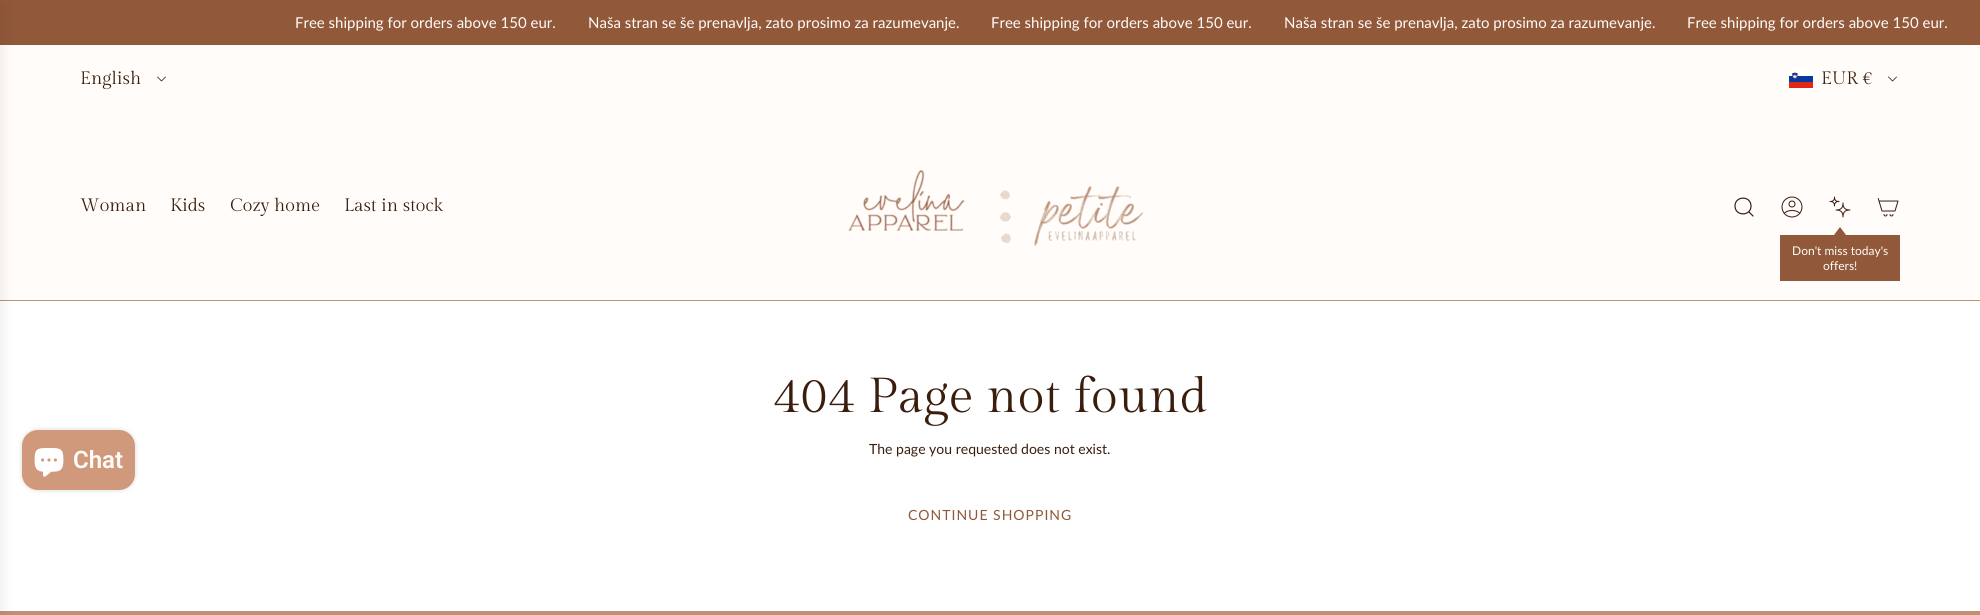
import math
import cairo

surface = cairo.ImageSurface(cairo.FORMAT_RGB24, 1980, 615)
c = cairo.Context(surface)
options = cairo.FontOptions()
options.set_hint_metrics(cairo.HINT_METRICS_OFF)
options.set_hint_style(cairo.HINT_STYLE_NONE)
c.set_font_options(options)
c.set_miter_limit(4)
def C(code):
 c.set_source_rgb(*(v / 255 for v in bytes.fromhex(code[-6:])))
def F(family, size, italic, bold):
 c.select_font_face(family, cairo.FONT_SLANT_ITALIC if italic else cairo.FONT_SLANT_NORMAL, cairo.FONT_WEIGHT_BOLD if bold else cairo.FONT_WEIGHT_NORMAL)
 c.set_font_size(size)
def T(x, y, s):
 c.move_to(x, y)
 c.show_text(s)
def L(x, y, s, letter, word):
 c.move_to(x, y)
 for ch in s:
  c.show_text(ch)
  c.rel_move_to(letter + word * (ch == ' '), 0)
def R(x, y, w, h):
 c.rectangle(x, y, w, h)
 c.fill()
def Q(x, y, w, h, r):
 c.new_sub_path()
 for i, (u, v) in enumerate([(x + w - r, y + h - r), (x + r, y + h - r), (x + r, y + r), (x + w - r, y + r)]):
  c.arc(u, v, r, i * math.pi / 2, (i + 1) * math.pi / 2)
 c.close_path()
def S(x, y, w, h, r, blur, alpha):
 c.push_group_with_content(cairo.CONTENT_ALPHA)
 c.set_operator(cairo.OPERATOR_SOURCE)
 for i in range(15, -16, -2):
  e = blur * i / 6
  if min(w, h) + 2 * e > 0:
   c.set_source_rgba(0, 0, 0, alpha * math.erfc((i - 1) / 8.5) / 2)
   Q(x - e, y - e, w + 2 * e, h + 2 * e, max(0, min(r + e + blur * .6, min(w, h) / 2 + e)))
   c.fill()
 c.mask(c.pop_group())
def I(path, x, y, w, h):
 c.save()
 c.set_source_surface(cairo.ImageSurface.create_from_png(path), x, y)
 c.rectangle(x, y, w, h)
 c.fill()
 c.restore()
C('ffffff')
c.paint()
C('915839')
R(0,0,1980,45)
F('Lato',15,0,0)
C('fffcfa')
T(295,28,'Free shipping for orders above 150 eur.')
T(588,28,'Naša stran se še prenavlja, zato prosimo za razumevanje.')
T(991,28,'Free shipping for orders above 150 eur.')
T(1284,28,'Naša stran se še prenavlja, zato prosimo za razumevanje.')
T(1687,28,'Free shipping for orders above 150 eur.')
R(0,45,1980,255)
C('be9174')
R(0,300,1980,1)
R(0,611,1980,4)
C('000000')
S(-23,5,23,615,0,7.5,.1)
F('Gilda Display',18,0,0)
C('3a1d0d')
T(80,84,'English')
c.new_path()
c.move_to(157.5,77)
c.line_to(161.5,81)
c.line_to(165.5,77)
c.set_line_width(.8)
c.set_line_cap(cairo.LINE_CAP_ROUND)
c.set_line_join(cairo.LINE_JOIN_ROUND)
c.stroke()
I('1.png',1789,70,24,18)
T(1821,84,'EUR €')
c.new_path()
c.move_to(1888.5,77)
c.line_to(1892.5,81)
c.line_to(1896.5,77)
c.stroke()
T(80,211,'Woman')
T(170,211,'Kids')
T(230,211,'Cozy home')
T(344,211,'Last in stock')
I('2.png',848,170,296,76)
c.new_path()
c.move_to(1749,212)
c.line_to(1753,216)
c.move_to(1735,206)
c.curve_to(1735,216.5,1751,216.5,1751,206)
c.curve_to(1751,195.5,1735,195.5,1735,206)
c.close_path()
c.set_line_width(1.2)
c.stroke()
I('3.png',1781,196,22,22)
I('4.png',1877,198,22,19)
I('5.png',1829,196,22,22)
C('915839')
R(1780,235,120,46)
c.new_path()
c.move_to(1846,235)
c.line_to(1834,235)
c.line_to(1840,227)
c.close_path()
c.fill()
F('Lato',12,0,0)
C('fffcfa')
T(1792,255,'Don\'t miss today\'s')
T(1823,270,'offers!')
F('Gilda Display',49,0,0)
C('3a1d0d')
L(773,412,'404 Page not found',.5,0)
F('Lato',14,0,0)
T(869,454,'The page you requested does not exist.')
C('915839')
L(908,520,'CONTINUE SHOPPING',1,0)
C('000000')
S(22,430,113,60,16,2.5,.15)
C('d0997b')
Q(22,430,113,60,16)
c.fill()
I('6.png',34,448,30,29)
F('Roboto SemiBold',24,0,0)
C('fffcfa')
T(73,468,'Chat')
surface.write_to_png('o.png')
